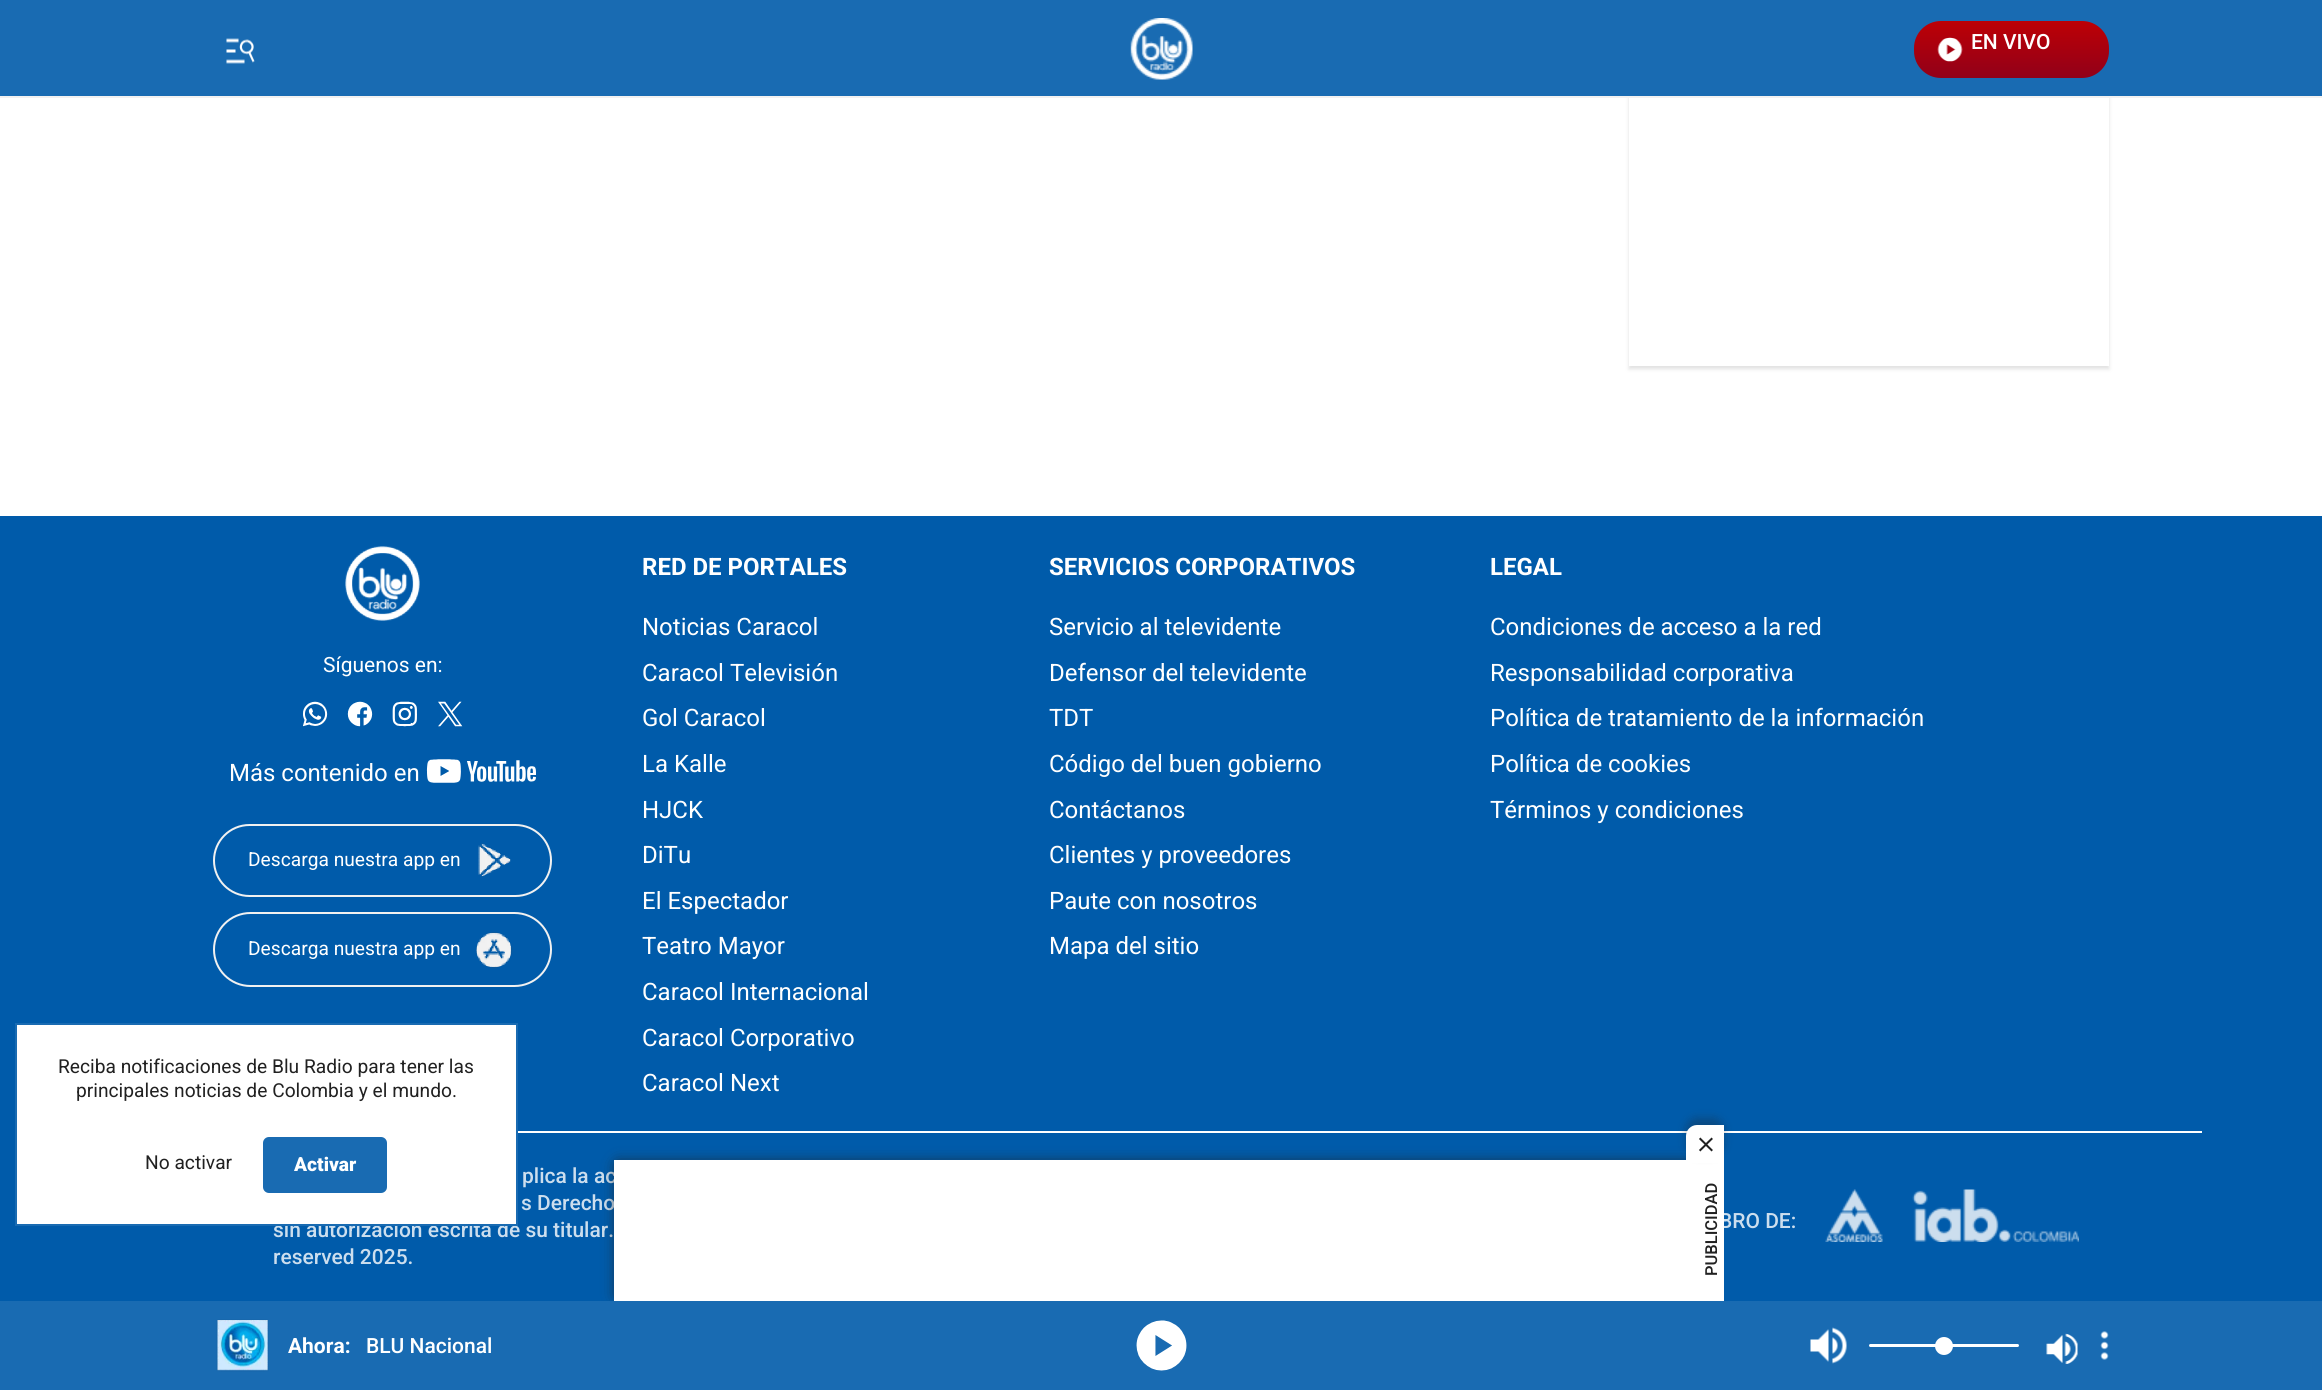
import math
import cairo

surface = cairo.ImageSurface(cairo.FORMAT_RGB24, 2322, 1390)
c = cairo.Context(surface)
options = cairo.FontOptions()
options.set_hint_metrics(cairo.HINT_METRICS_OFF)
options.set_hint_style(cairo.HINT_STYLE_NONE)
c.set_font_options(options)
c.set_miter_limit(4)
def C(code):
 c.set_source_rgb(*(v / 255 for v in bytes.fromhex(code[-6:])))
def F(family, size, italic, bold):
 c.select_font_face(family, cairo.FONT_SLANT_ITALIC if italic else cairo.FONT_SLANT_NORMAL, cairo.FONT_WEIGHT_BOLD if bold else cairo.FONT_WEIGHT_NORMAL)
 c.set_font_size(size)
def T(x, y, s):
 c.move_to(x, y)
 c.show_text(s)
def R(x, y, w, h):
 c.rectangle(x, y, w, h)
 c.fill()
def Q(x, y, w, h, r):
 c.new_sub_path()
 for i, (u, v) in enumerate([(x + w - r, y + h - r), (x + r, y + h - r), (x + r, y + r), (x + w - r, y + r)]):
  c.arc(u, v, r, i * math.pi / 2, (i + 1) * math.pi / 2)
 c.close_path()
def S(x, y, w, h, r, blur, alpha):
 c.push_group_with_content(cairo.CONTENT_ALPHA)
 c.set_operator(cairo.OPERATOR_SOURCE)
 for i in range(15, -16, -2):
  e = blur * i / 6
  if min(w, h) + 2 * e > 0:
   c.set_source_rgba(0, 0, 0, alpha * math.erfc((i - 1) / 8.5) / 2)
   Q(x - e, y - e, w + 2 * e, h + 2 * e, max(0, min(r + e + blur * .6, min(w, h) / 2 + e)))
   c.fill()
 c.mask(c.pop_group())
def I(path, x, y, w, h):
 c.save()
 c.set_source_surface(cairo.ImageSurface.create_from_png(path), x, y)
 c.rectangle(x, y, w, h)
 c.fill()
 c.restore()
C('ffffff')
c.paint()
c.save()
c.set_fill_rule(cairo.FILL_RULE_EVEN_ODD)
c.new_path()
c.move_to(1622,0)
c.line_to(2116,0)
c.line_to(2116,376)
c.line_to(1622,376)
c.close_path()
c.move_to(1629,-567)
c.line_to(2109,-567)
c.line_to(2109,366)
c.line_to(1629,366)
c.close_path()
c.clip()
C('565656')
S(1629,-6,480,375,0,2,.18)
c.restore()
C('196bb2')
R(0,0,2322,96)
C('f1f1f1')
R(0,96,2322,2)
I('1.png',226,38,29,26)
I('2.png',1130,18,63,62)
gradient = cairo.LinearGradient(2012,21,2012,78)
gradient.add_color_stop_rgba(0,0.741,0,0.02,1)
gradient.add_color_stop_rgba(1,0.569,0,0.098,1)
c.set_source(gradient)
Q(1914,21,195,57,27)
c.fill()
I('3.png',1937,37,26,25)
F('Roboto Medium',21,0,0)
C('ffffff')
T(1971,49,'EN VIVO')
C('005baa')
R(0,516,2322,785)
I('4.png',345,546,75,75)
F('Roboto',21,0,0)
C('ffffff')
T(323,672,'Síguenos en:')
I('5.png',303,701,25,26)
I('6.png',347,701,26,26)
I('7.png',392,701,25,26)
I('8.png',438,701,25,26)
F('Roboto',24,0,0)
T(229,781,'Más contenido en')
I('9.png',426,759,110,24)
Q(214,825,337,71,35.5)
C('f1f1f1')
c.stroke()
F('Roboto',19.2,0,0)
C('ffffff')
T(248,866,'Descarga nuestra app en')
I('10.png',478,843,33,34)
Q(214,913,337,73,36.5)
C('f1f1f1')
c.stroke()
C('ffffff')
T(248,955,'Descarga nuestra app en')
I('11.png',476,932,37,37)
F('Roboto',24,0,1)
T(642,575,'RED DE PORTALES')
F('Roboto',24,0,0)
T(642,635,'Noticias Caracol')
T(642,681,'Caracol Televisión')
T(642,726,'Gol Caracol')
T(642,772,'La Kalle')
T(642,818,'HJCK')
T(642,863,'DiTu')
T(642,909,'El Espectador')
T(642,954,'Teatro Mayor')
T(642,1000,'Caracol Internacional')
T(642,1046,'Caracol Corporativo')
T(642,1091,'Caracol Next')
F('Roboto',24,0,1)
T(1049,575,'SERVICIOS CORPORATIVOS')
F('Roboto',24,0,0)
T(1049,635,'Servicio al televidente')
T(1049,681,'Defensor del televidente')
T(1049,726,'TDT')
T(1049,772,'Código del buen gobierno')
T(1049,818,'Contáctanos')
T(1049,863,'Clientes y proveedores')
T(1049,909,'Paute con nosotros')
T(1049,954,'Mapa del sitio')
F('Roboto',24,0,1)
T(1490,575,'LEGAL')
F('Roboto',24,0,0)
T(1490,635,'Condiciones de acceso a la red')
T(1490,681,'Responsabilidad corporativa')
T(1490,726,'Política de tratamiento de la información')
T(1490,772,'Política de cookies')
T(1490,818,'Términos y condiciones')
R(518,1131,1684,2)
F('Roboto Medium',21,0,0)
C('ccdeee')
T(522,1183,'plica la ac')
T(521,1210,'s Derecho')
T(273,1237,'sin autorización escrita de su titular.')
T(273,1264,'reserved 2025.')
T(1719,1228,'BRO DE:')
I('12.png',1825,1189,58,53)
I('13.png',1912,1189,167,53)
C('ffffff')
c.rectangle(16,1024,501,201)
c.fill_preserve()
C('196bb2')
c.stroke()
F('Roboto',19.2,0,0)
C('212121')
T(58,1073,'Reciba notificaciones de Blu Radio para tener las')
T(76,1097,'principales noticias de Colombia y el mundo.')
T(145,1169,'No activar')
C('196bb2')
Q(264,1138,122,54,5)
c.fill_preserve()
c.stroke()
F('Roboto Black',19.2,0,0)
C('ffffff')
T(294,1171,'Activar')
C('212121')
S(618,1164,1086,132,0,7.5,1)
C('ffffff')
R(614,1160,1090,141)
R(1704,1163,20,138)
C('212121')
S(1686,1118,38,37,11,4.5,.3)
C('ffffff')
c.new_path()
c.move_to(1697,1125)
c.line_to(1724,1125)
c.line_to(1724,1163)
c.line_to(1686,1163)
c.line_to(1686,1136)
c.curve_to(1686,1130,1691,1125,1697,1125)
c.close_path()
c.fill()
I('14.png',1699,1137,14,15)
F('Roboto Medium',16.5,0,0)
C('212121')
c.save()
c.translate(1717,1276)
c.rotate(-90 * math.pi / 180)
T(0,0,'PUBLICIDAD')
c.restore()
C('196bb2')
R(0,1301,2322,89)
I('15.png',216,1319,53,53)
F('Roboto',21,0,1)
C('ffffff')
T(288,1353,'Ahora:')
F('Roboto Medium',21,0,0)
T(366,1353,'BLU Nacional')
I('16.png',1136,1320,51,51)
I('17.png',1810,1327,37,37)
Q(1869,1344,150,3,1.5)
c.fill()
c.arc(1944,1346,9,0,2 * math.pi)
c.fill()
I('18.png',2046,1333,32,31)
I('19.png',2100,1331,9,29)
surface.write_to_png('o.png')
